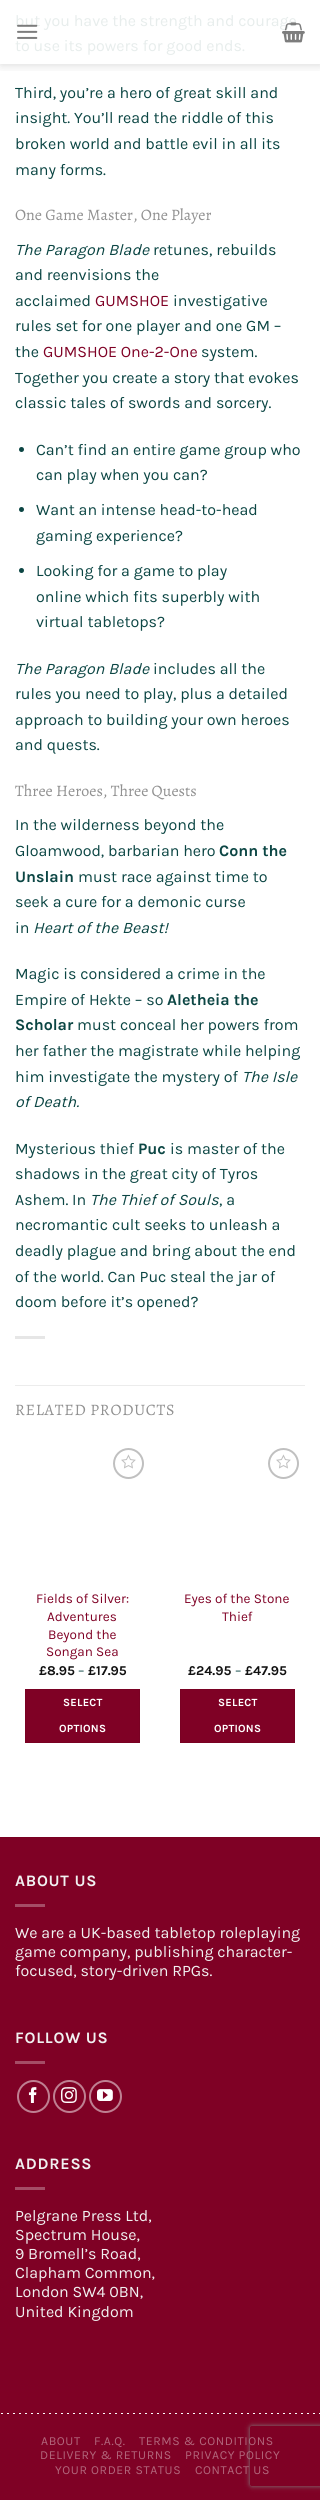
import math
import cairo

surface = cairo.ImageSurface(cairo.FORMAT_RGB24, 320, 2500)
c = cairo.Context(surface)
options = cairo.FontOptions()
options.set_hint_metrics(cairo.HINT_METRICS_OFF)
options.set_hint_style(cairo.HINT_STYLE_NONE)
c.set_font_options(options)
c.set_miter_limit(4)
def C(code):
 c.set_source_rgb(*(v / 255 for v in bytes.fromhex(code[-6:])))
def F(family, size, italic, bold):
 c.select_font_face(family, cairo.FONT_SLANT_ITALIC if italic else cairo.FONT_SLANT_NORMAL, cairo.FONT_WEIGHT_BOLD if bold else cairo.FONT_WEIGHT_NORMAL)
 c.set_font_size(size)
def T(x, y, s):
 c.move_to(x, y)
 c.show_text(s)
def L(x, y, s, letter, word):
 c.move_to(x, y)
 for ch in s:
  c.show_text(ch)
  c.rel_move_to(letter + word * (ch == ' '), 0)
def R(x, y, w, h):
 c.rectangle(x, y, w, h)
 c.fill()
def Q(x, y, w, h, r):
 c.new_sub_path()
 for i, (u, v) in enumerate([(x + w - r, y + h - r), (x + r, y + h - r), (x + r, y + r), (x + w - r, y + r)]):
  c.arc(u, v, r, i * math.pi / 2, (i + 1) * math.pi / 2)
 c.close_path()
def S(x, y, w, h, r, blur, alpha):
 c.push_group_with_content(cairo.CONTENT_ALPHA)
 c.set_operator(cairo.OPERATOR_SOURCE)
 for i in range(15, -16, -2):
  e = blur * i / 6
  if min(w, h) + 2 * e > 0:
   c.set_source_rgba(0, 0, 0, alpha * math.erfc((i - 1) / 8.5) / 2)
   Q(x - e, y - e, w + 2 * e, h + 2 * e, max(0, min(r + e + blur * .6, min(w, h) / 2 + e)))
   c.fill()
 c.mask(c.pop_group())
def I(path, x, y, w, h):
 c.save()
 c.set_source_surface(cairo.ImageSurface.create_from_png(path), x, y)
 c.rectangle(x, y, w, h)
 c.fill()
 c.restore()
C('ffffff')
c.paint()
c.save()
c.rectangle(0,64,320,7)
c.clip()
C('000000')
S(1,1,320,64,0,5,.15)
c.restore()
F('Karla',16,0,0)
C('e7edec')
T(15,26,'but you have the strength and courage')
I('1.png',17,24,21,15)
I('2.png',282,22,23,21)
T(15,51,'to use its powers for good ends.')
C('0c4644')
T(15,98,'Third, you’re a hero of great skill and')
T(15,123,'insight. You’ll read the riddle of this')
T(15,149,'broken world and battle evil in all its')
T(15,175,'many forms.')
F('Alegreya',16,0,0)
C('919191')
T(15,220,'One Game Master, One Player')
F('Karla',16,1,0)
C('0c4644')
T(15,255,'The Paragon Blade')
F('Karla',16,0,0)
T(153,255,'retunes, rebuilds')
T(15,280,'and reenvisions the')
T(15,306,'acclaimed')
C('7f0125')
T(95,306,'GUMSHOE')
C('0c4644')
T(173,306,'investigative')
T(15,331,'rules set for one player and one GM –')
T(15,357,'the')
C('7f0125')
T(43,357,'GUMSHOE One-2-One')
C('0c4644')
T(201,357,'system.')
T(15,383,'Together you create a story that evokes')
T(15,408,'classic tales of swords and sorcery.')
c.new_path()
c.arc(21.5,449.5,2.5,0,2 * math.pi)
c.fill()
T(36,455,'Can’t find an entire game group who')
T(36,480,'can play when you can?')
c.new_path()
c.arc(21.5,509.5,2.5,0,2 * math.pi)
c.fill()
T(36,515,'Want an intense head-to-head')
T(36,541,'gaming experience?')
c.new_path()
c.arc(21.5,570.5,2.5,0,2 * math.pi)
c.fill()
T(36,576,'Looking for a game to play')
T(36,602,'online which fits superbly with')
T(36,627,'virtual tabletops?')
F('Karla',16,1,0)
T(15,674,'The Paragon Blade')
F('Karla',16,0,0)
T(153,674,'includes all the')
T(15,699,'rules you need to play, plus a detailed')
T(15,725,'approach to building your own heroes')
T(15,750,'and quests.')
F('Alegreya',16,0,0)
C('919191')
T(15,796,'Three Heroes, Three Quests')
F('Karla',16,0,0)
C('0c4644')
T(15,830,'In the wilderness beyond the')
T(15,856,'Gloamwood, barbarian hero')
F('Karla',16,0,1)
T(219,856,'Conn the')
T(15,882,'Unslain')
F('Karla',16,0,0)
T(78,882,'must race against time to')
T(15,907,'seek a cure for a demonic curse')
T(15,933,'in')
F('Karla',16,1,0)
T(33,933,'Heart of the Beast!')
F('Karla',16,0,0)
T(15,979,'Magic is considered a crime in the')
T(15,1005,'Empire of Hekte – so')
F('Karla',16,0,1)
T(167,1005,'Aletheia the')
T(15,1030,'Scholar')
F('Karla',16,0,0)
T(77,1030,'must conceal her powers from')
T(15,1056,'her father the magistrate while helping')
T(15,1082,'him investigate the mystery of')
F('Karla',16,1,0)
T(242,1082,'The Isle')
T(15,1107,'of Death.')
F('Karla',16,0,0)
T(15,1154,'Mysterious thief')
F('Karla',16,0,1)
T(138,1154,'Puc')
F('Karla',16,0,0)
T(170,1154,'is master of the')
T(15,1179,'shadows in the great city of Tyros')
T(15,1205,'Ashem. In')
F('Karla',16,1,0)
T(90,1205,'The Thief of Souls')
F('Karla',16,0,0)
T(219,1205,', a')
T(15,1230,'necromantic cult seeks to unleash a')
T(15,1256,'deadly plague and bring about the end')
T(15,1282,'of the world. Can Puc steal the jar of')
T(15,1307,'doom before it’s opened?')
C('e6e6e6')
R(15,1336,30,3)
C('ececec')
R(15,1385,290,1)
F('Alegreya',16,0,0)
C('919191')
L(15,1415,'RELATED PRODUCTS',.75,0)
c.new_path()
c.arc(128.5,1463.5,14.5,0,2 * math.pi)
C('c0c0c0')
c.stroke()
I('3.png',121,1454,15,15)
F('Karla',13.5,0,0)
C('7f0125')
T(36,1603,'Fields of Silver:')
T(47,1621,'Adventures')
T(48,1639,'Beyond the')
T(46,1656,'Songan Sea')
F('Karla',13.5,0,1)
C('111111')
T(39,1675,'£8.95')
F('Karla',13.5,0,0)
C('0c4644')
T(78,1675,'–')
F('Karla',13.5,0,1)
C('111111')
T(88,1675,'£17.95')
C('7f0125')
c.rectangle(25.5,1689.5,114,53)
c.fill_preserve()
C('790123')
c.set_line_width(1)
c.stroke()
F('Karla',11,0,1)
C('ffffff')
L(63,1706,'SELECT',.25,0)
L(59,1732,'OPTIONS',.25,0)
c.new_path()
c.arc(283.5,1463.5,14.5,0,2 * math.pi)
C('c0c0c0')
c.set_line_width(2)
c.stroke()
I('3.png',276,1454,15,15)
F('Karla',13.5,0,0)
C('7f0125')
T(184,1603,'Eyes of the Stone')
T(222,1621,'Thief')
F('Karla',13.5,0,1)
C('111111')
T(188,1675,'£24.95')
F('Karla',13.5,0,0)
C('0c4644')
T(235,1675,'–')
F('Karla',13.5,0,1)
C('111111')
T(245,1675,'£47.95')
C('7f0125')
c.rectangle(180.5,1689.5,114,53)
c.fill_preserve()
C('790123')
c.set_line_width(1)
c.stroke()
F('Karla',11,0,1)
C('ffffff')
L(218,1706,'SELECT',.25,0)
L(214,1732,'OPTIONS',.25,0)
C('7f0125')
R(0,1838,320,662)
C('790123')
R(0,1837,320,1)
I('4.png',1,2413,319,1)
F('Karla',16,0,1)
C('f1f1f1')
L(15,1886,'ABOUT US',.75,0)
C('a54d66')
R(15,1904,30,3)
F('Karla',16,0,0)
C('f1f1f1')
T(15,1938,'We are a UK-based tabletop roleplaying')
T(15,1957,'game company, publishing character-')
T(15,1976,'focused, story-driven RPGs.')
F('Karla',16,0,1)
L(15,2043,'FOLLOW US',.75,0)
C('a54d66')
R(15,2061,30,3)
c.new_path()
c.arc(33.5,2096.5,15.5,0,2 * math.pi)
C('bf8092')
c.set_line_width(2)
c.stroke()
I('5.png',28,2087,9,16)
c.arc(69.5,2096.5,15.5,0,2 * math.pi)
c.stroke()
I('6.png',61,2087,16,16)
c.arc(105.5,2096.5,15.5,0,2 * math.pi)
c.stroke()
I('7.png',97,2089,16,12)
C('f1f1f1')
L(15,2169,'ADDRESS',.75,0)
C('a54d66')
R(15,2187,30,3)
F('Karla',16,0,0)
C('f1f1f1')
T(15,2221,'Pelgrane Press Ltd,')
T(15,2240,'Spectrum House,')
T(15,2259,'9 Bromell’s Road,')
T(15,2278,'Clapham Common,')
T(15,2297,'London SW4 0BN,')
T(15,2317,'United Kingdom')
F('Karla',12.25,0,0)
C('b2677c')
L(41,2445,'ABOUT',.6,0)
L(94,2445,'F.A.Q.',.6,0)
L(139,2445,'TERMS & CONDITIONS',.6,0)
L(40,2459,'DELIVERY & RETURNS',.6,0)
L(185,2459,'PRIVACY POLICY',.6,0)
L(55,2474,'YOUR ORDER STATUS',.6,0)
L(195,2474,'CONTACT US',.6,0)
c.save()
c.set_fill_rule(cairo.FILL_RULE_EVEN_ODD)
c.new_path()
c.move_to(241,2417)
c.line_to(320,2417)
c.line_to(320,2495)
c.line_to(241,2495)
c.close_path()
c.move_to(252,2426)
c.line_to(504,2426)
c.curve_to(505,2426,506,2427,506,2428)
c.line_to(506,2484)
c.curve_to(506,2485,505,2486,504,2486)
c.line_to(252,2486)
c.curve_to(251,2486,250,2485,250,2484)
c.line_to(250,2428)
c.curve_to(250,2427,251,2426,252,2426)
c.close_path()
c.clip()
C('808080')
S(250,2426,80,60,2,2.5,1)
c.restore()
surface.write_to_png('o.png')
